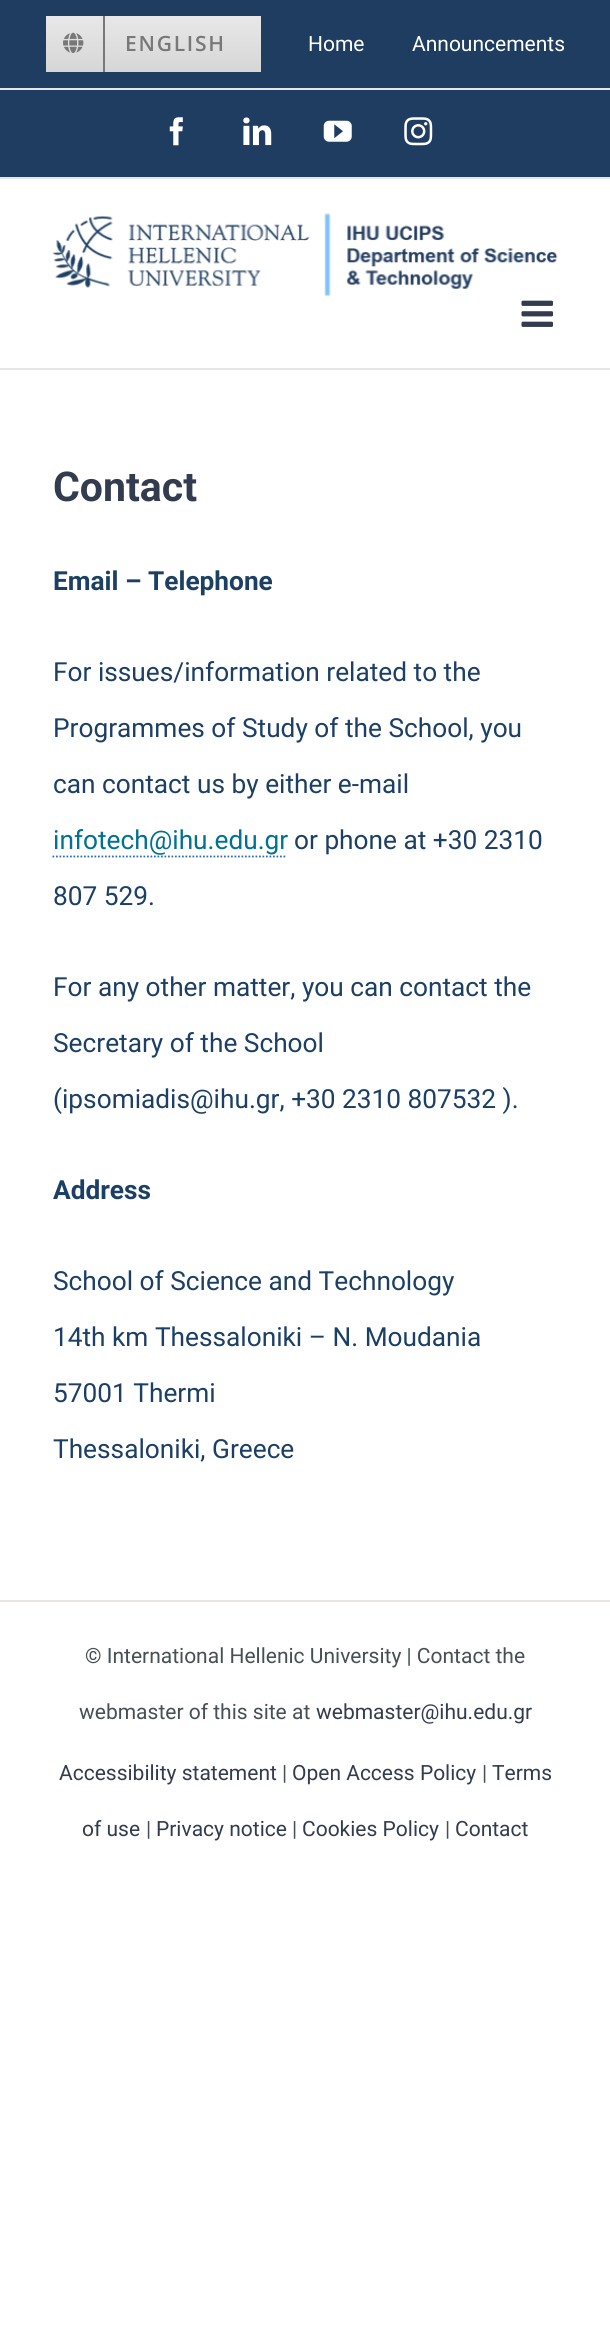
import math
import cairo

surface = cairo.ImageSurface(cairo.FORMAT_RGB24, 610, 2329)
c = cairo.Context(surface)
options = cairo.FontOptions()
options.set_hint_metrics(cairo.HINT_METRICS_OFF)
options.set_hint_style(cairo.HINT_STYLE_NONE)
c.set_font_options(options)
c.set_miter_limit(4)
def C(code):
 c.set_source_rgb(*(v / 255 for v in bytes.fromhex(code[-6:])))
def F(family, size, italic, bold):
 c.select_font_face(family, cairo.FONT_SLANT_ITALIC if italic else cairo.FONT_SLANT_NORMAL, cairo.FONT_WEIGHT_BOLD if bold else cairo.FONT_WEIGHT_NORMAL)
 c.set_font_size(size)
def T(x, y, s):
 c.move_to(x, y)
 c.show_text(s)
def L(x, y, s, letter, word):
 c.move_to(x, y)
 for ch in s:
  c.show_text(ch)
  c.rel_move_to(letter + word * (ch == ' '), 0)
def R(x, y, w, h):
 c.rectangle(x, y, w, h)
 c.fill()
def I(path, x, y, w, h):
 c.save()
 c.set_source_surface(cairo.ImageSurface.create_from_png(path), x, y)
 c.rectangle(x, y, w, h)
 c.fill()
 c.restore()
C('ffffff')
c.paint()
C('1e3d61')
R(0,0,610,177)
C('e5e5e5')
R(0,177,610,2)
R(0,88,610,2)
gradient = cairo.LinearGradient(153,16,153,72)
gradient.add_color_stop_rgba(0,0.91,0.91,0.91,1)
gradient.add_color_stop_rgba(1,0.839,0.839,0.839,1)
c.set_source(gradient)
R(46,16,215,56)
C('787878')
R(103,16,2,56)
I('1.png',63,32,21,21)
F('Open Sans SemiBold',21,0,0)
L(125,51,'ENGLISH',1.75,0)
F('Roboto',21,0,0)
C('ffffff')
T(308,51,'Home')
T(412,51,'Announcements')
I('2.png',169,117,14,29)
I('3.png',243,117,29,29)
I('4.png',323,120,29,22)
I('5.png',404,117,29,29)
C('e5e5e5')
R(0,368,610,2)
I('6.png',52,213,506,83)
I('7.png',521,300,32,27)
F('Roboto',41,0,1)
C('333c4e')
T(53,501,'Contact')
F('Roboto',26.25,0,1)
C('1c3f65')
T(53,590,'Email – Telephone')
F('Roboto',26.25,0,0)
T(53,681,'For issues/information related to the')
T(53,737,'Programmes of Study of the School, you')
T(53,793,'can contact us by either e-mail')
C('007193')
T(53,849,'infotech@ihu.edu.gr')
c.new_path()
c.move_to(52.5,856.5)
c.line_to(287,856.5)
C('2d6eaf')
c.set_line_width(1.8)
c.set_dash([1.75,1.75])
c.stroke()
C('1c3f65')
T(294,849,'or phone at +30 2310')
T(53,905,'807 529.')
T(53,996,'For any other matter, you can contact the')
T(53,1052,'Secretary of the School')
T(53,1108,'(ipsomiadis@ihu.gr, +30 2310 807532 ).')
F('Roboto',26.25,0,1)
T(53,1199,'Address')
F('Roboto',26.25,0,0)
T(53,1290,'School of Science and Technology')
T(53,1346,'14th km Thessaloniki – N. Moudania')
T(53,1402,'57001 Thermi')
T(53,1458,'Thessaloniki, Greece')
C('e7e4e2')
R(0,1600,610,2)
F('Roboto',21,0,0)
C('465053')
T(85,1663,'© International Hellenic University | Contact the')
T(79,1719,'webmaster of this site at')
C('333c4e')
T(316,1719,'webmaster@ihu.edu.gr')
T(59,1780,'Accessibility statement')
C('465053')
T(282,1780,'|')
C('333c4e')
T(292,1780,'Open Access Policy')
C('465053')
T(482,1780,'|')
C('333c4e')
T(492,1780,'Terms')
T(82,1836,'of use')
C('465053')
T(146,1836,'|')
C('333c4e')
T(156,1836,'Privacy notice')
C('465053')
T(292,1836,'|')
C('333c4e')
T(302,1836,'Cookies Policy')
C('465053')
T(445,1836,'|')
C('333c4e')
T(455,1836,'Contact')
surface.write_to_png('o.png')
